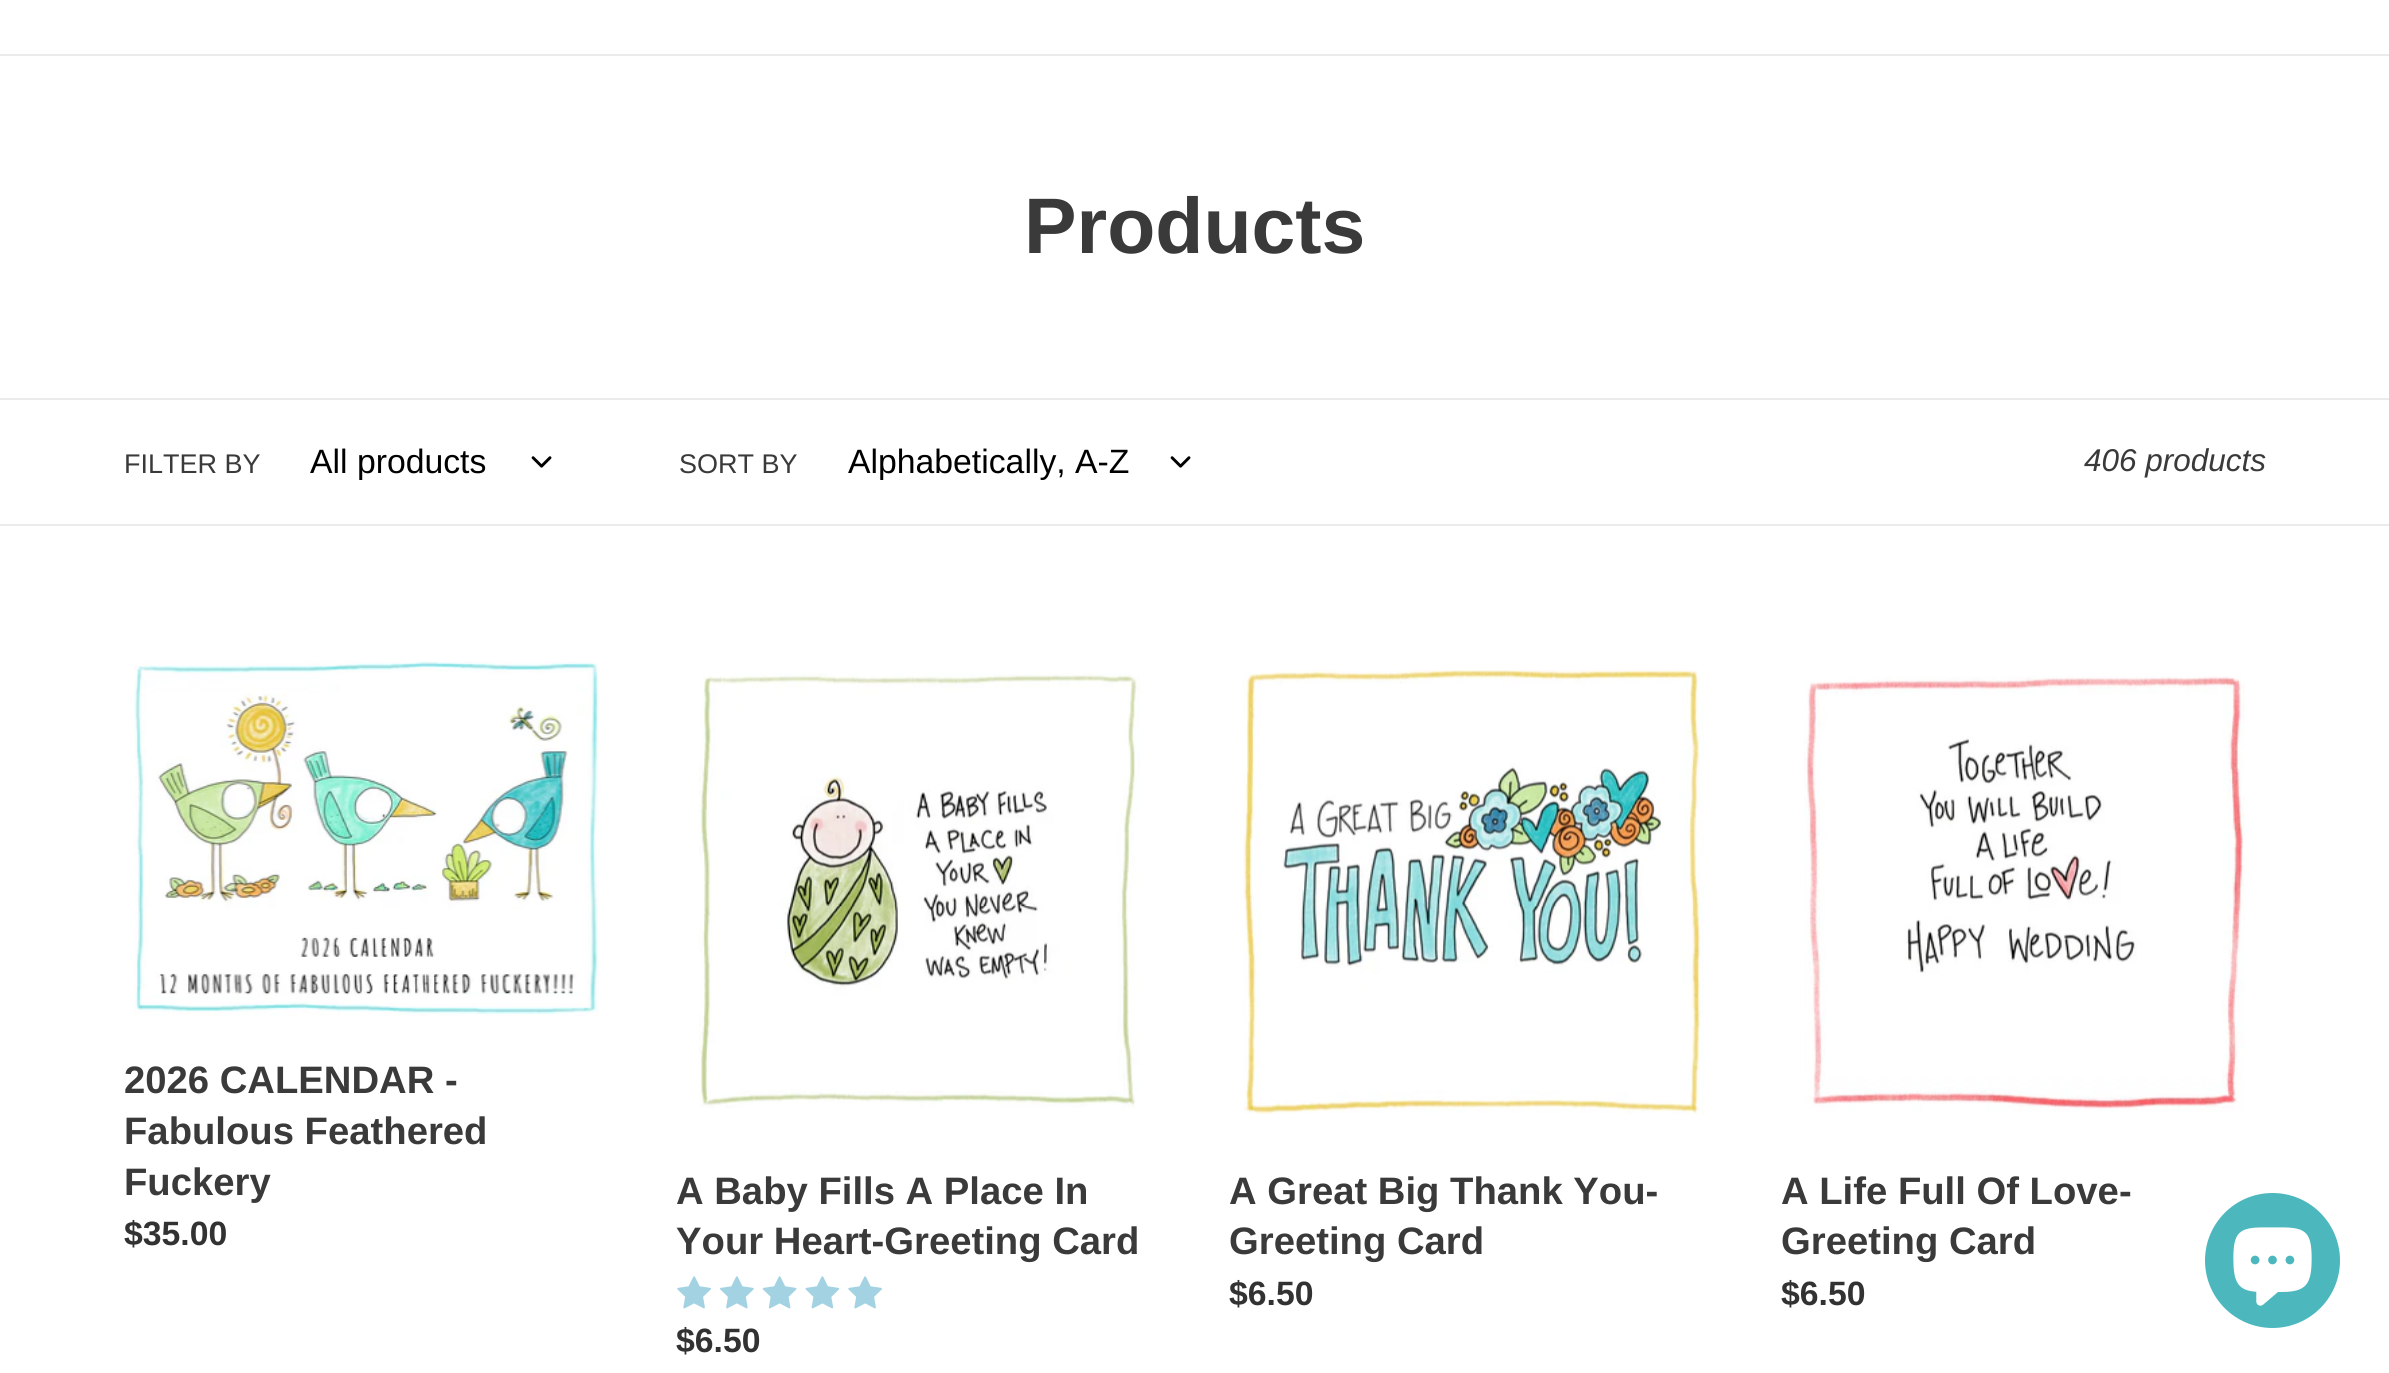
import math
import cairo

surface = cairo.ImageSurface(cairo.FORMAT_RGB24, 2389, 1373)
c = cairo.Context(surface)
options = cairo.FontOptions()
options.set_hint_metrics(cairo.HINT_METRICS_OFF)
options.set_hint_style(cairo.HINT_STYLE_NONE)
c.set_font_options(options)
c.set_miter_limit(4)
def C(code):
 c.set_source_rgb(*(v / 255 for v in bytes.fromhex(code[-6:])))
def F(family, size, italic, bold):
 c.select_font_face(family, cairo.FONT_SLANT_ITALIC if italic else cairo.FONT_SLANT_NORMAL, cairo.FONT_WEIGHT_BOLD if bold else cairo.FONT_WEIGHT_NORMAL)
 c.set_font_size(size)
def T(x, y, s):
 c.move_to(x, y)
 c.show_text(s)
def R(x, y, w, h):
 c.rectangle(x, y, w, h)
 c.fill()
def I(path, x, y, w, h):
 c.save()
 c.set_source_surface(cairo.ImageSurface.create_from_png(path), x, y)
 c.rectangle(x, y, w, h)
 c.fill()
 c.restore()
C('ffffff')
c.paint()
C('ebebeb')
R(0,54,2389,2)
F('Liberation Sans',78.75,0,1)
C('3a3a3a')
T(1024,253,'Products')
C('ebebeb')
R(0,398,2389,2)
R(0,524,2389,2)
F('Liberation Sans',27,0,0)
C('3a3a3a')
T(124,473,'FILTER BY')
F('Liberation Sans',33.75,0,0)
C('000000')
T(310,473,'All products')
I('1.png',531,456,21,12)
F('Liberation Sans',27,0,0)
C('3a3a3a')
T(679,473,'SORT BY')
F('Liberation Sans',33.75,0,0)
C('000000')
T(848,473,'Alphabetically, A-Z')
I('1.png',1170,456,21,12)
F('Liberation Sans',31.5,1,0)
C('3a3a3a')
T(2084,471,'406 products')
I('2.png',134,661,465,355)
F('Liberation Sans',38.25,0,1)
T(124,1093,'2026 CALENDAR -')
T(124,1144,'Fabulous Feathered')
T(124,1195,'Fuckery')
F('Liberation Sans',33.75,0,1)
C('333232')
T(124,1245,'$35.00')
I('3.png',699,673,441,435)
F('Liberation Sans',38.25,0,1)
C('3a3a3a')
T(676,1204,'A Baby Fills A Place In')
T(676,1254,'Your Heart-Greeting Card')
I('4.png',677,1276,34,33)
I('5.png',720,1276,34,33)
I('6.png',762,1276,35,33)
I('7.png',805,1276,35,33)
I('4.png',848,1276,34,33)
F('Liberation Sans',33.75,0,1)
C('333232')
T(676,1352,'$6.50')
I('8.png',1243,669,461,445)
F('Liberation Sans',38.25,0,1)
C('3a3a3a')
T(1229,1204,'A Great Big Thank You-')
T(1229,1254,'Greeting Card')
F('Liberation Sans',33.75,0,1)
C('333232')
T(1229,1305,'$6.50')
I('9.png',1804,676,441,436)
F('Liberation Sans',38.25,0,1)
C('3a3a3a')
T(1781,1204,'A Life Full Of Love-')
T(1781,1254,'Greeting Card')
F('Liberation Sans',33.75,0,1)
C('333232')
T(1781,1305,'$6.50')
C('4cb8be')
c.new_path()
c.arc(2272.5,1260.5,67.5,0,2 * math.pi)
c.fill()
I('10.png',2233,1227,79,79)
surface.write_to_png('o.png')
